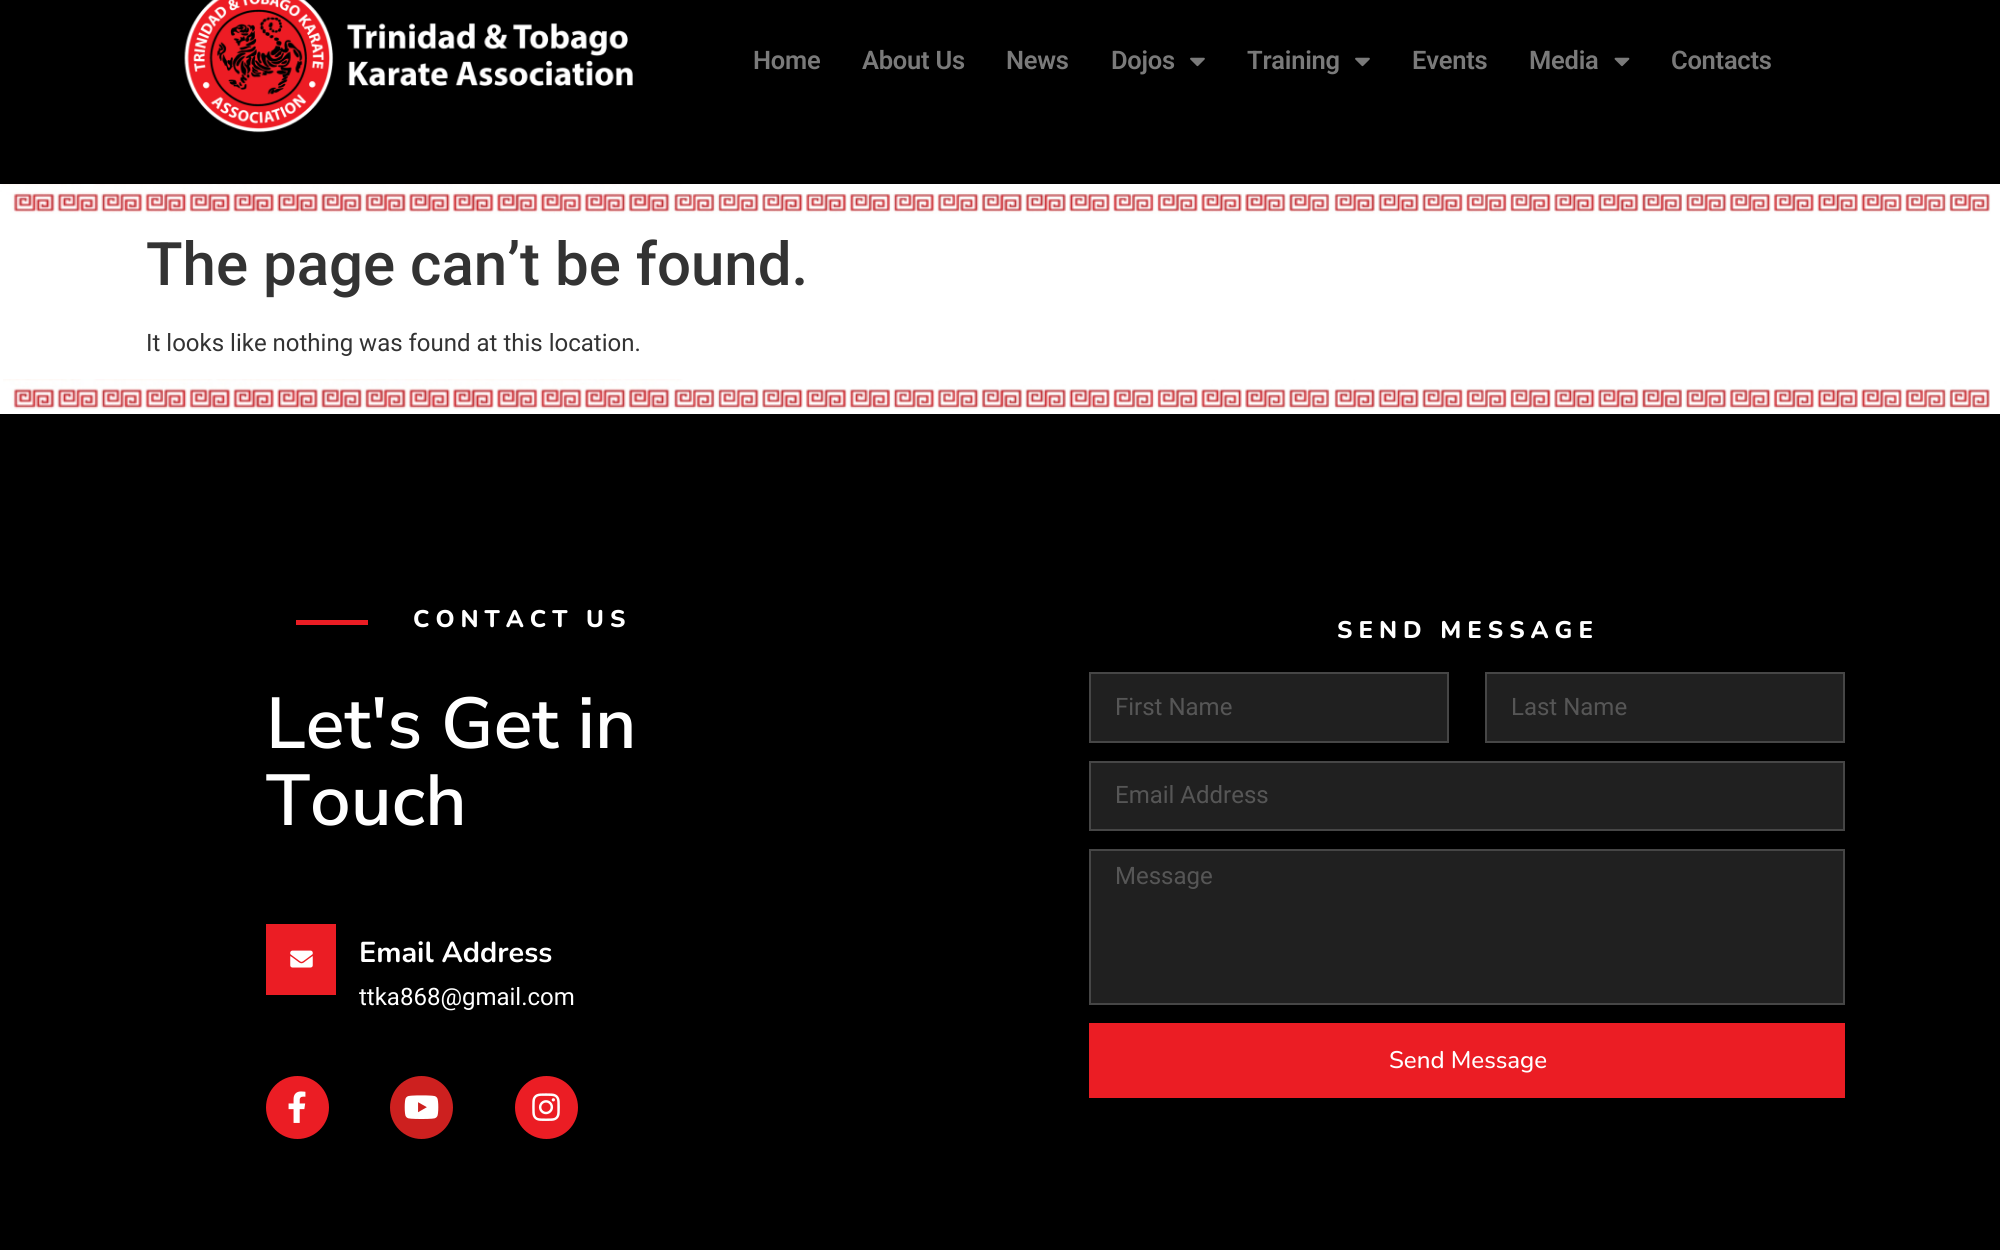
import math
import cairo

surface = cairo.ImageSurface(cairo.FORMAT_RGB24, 2000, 1250)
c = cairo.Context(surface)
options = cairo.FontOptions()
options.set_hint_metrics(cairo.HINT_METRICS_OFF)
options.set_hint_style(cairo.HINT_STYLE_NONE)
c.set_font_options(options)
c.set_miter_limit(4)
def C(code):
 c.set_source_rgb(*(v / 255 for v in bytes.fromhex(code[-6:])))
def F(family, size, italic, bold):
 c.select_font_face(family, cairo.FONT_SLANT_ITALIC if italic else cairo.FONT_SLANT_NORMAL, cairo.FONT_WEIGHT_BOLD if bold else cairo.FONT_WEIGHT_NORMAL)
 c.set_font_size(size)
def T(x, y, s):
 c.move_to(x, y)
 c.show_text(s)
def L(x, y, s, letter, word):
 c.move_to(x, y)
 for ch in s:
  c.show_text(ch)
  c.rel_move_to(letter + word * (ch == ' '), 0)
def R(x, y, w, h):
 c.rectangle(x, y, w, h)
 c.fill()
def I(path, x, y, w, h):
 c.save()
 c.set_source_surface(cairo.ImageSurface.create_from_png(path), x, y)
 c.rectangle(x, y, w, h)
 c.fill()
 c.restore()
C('ffffff')
c.paint()
C('000000')
R(0,0,2000,184)
I('1.png',184,0,449,133)
F('Roboto SemiBold',25.5,0,0)
C('7a7a7a')
L(753,69,'Home',-.25,0)
L(862,69,'About Us',-.25,0)
L(1006,69,'News',-.25,0)
L(1111,69,'Dojos',-.25,0)
I('2.png',1190,57,15,10)
L(1247,69,'Training',-.25,0)
I('2.png',1355,57,15,10)
L(1412,69,'Events',-.25,0)
L(1529,69,'Media',-.25,0)
I('3.png',1614,57,16,10)
L(1671,69,'Contacts',-.25,0)
I('4.png',0,184,2000,30)
F('Roboto Medium',60,0,0)
C('333333')
T(146,285,'The page can’t be found.')
F('Roboto',24,0,0)
T(146,351,'It looks like nothing was found at this location.')
I('5.png',3,379,1987,32)
C('000000')
R(0,414,2000,836)
C('eb1d24')
R(296,620,72,5)
F('Nunito ExtraBold',24,0,0)
C('ffffff')
L(413,627,'CONTACT US',6,0)
F('Nunito Sans SemiBold',72,0,0)
T(266,748,'Let\'s Get in')
T(266,825,'Touch')
C('eb1d24')
R(266,924,70,71)
I('6.png',290,950,23,18)
F('Nunito',28.75,0,1)
C('ffffff')
T(359,962,'Email Address')
F('Roboto',24,0,0)
T(359,1005,'ttka868@gmail.com')
C('eb1d24')
c.new_path()
c.arc(297.5,1107.5,31.5,0,2 * math.pi)
c.fill()
I('7.png',288,1091,18,32)
C('cd201f')
c.arc(421.5,1107.5,31.5,0,2 * math.pi)
c.fill()
I('8.png',404,1095,35,24)
C('eb1d24')
c.arc(546.5,1107.5,31.5,0,2 * math.pi)
c.fill()
I('9.png',532,1093,28,28)
F('Nunito ExtraBold',24,0,0)
C('ffffff')
L(1337,638,'SEND MESSAGE',6,0)
C('202020')
c.rectangle(1090,673,358,69)
c.fill_preserve()
C('464646')
c.stroke()
F('Roboto',24,0,0)
C('565656')
T(1115,715,'First Name')
C('202020')
c.rectangle(1486,673,358,69)
c.fill_preserve()
C('464646')
c.stroke()
C('565656')
T(1511,715,'Last Name')
C('202020')
c.rectangle(1090,762,754,68)
c.fill_preserve()
C('464646')
c.stroke()
C('565656')
T(1115,803,'Email Address')
C('202020')
c.rectangle(1090,850,754,154)
c.fill_preserve()
C('464646')
c.stroke()
C('565656')
T(1115,884,'Message')
C('eb1d24')
R(1089,1023,756,75)
F('Nunito Medium',24,0,0)
C('ffffff')
T(1389,1068,'Send Message')
surface.write_to_png('o.png')
